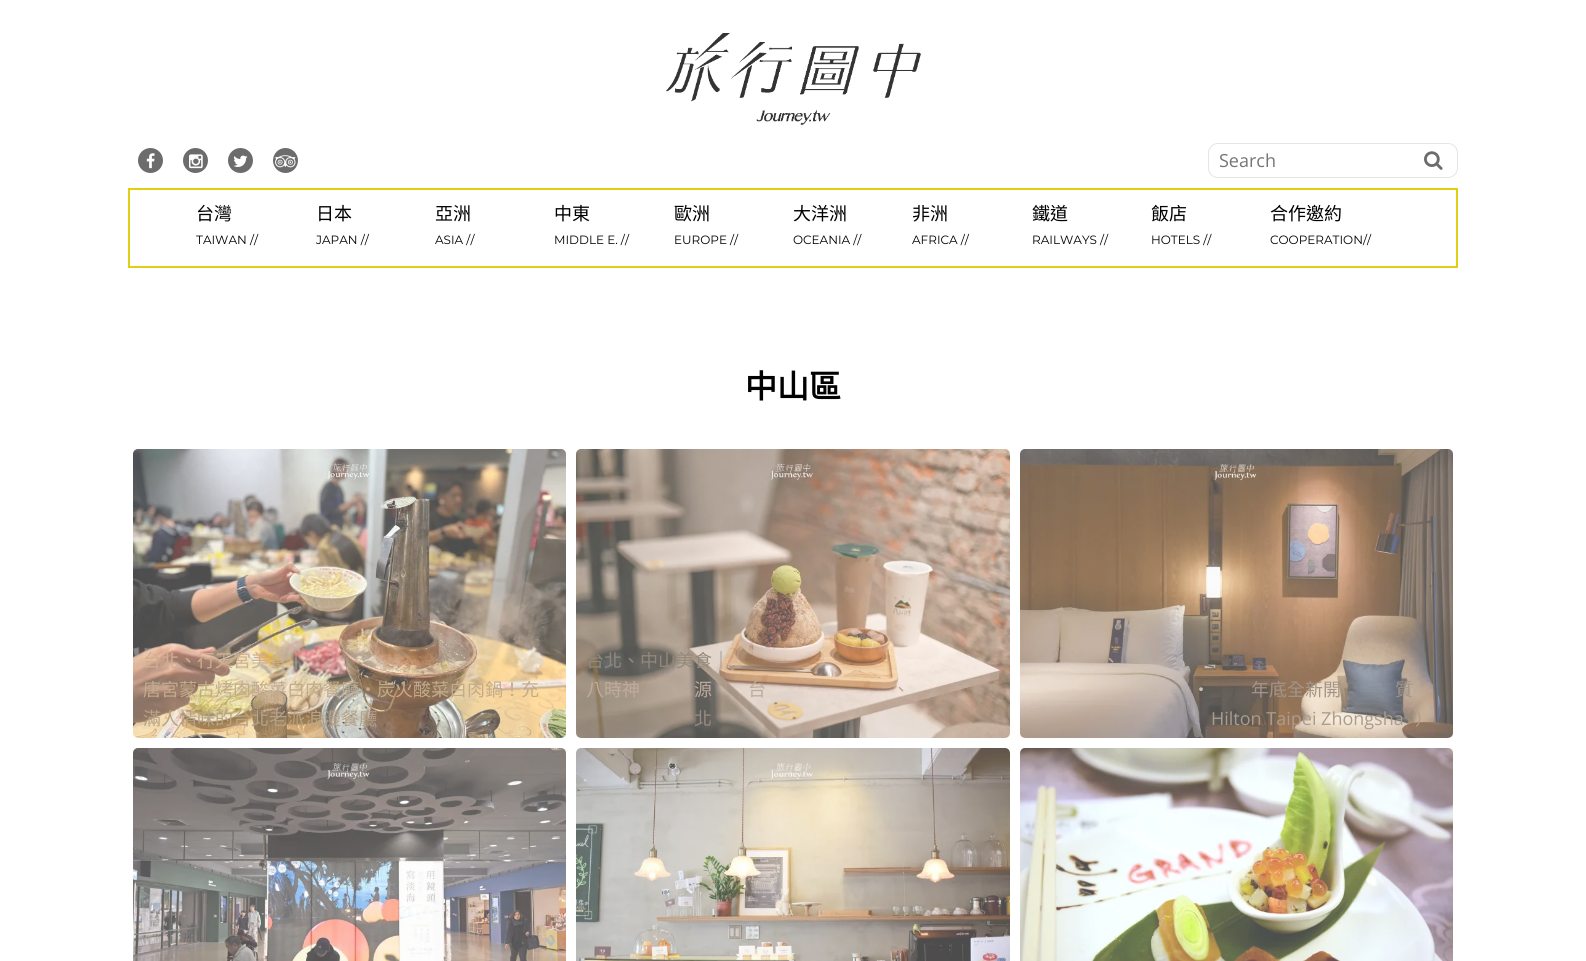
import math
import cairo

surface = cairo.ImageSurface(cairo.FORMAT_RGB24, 1586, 961)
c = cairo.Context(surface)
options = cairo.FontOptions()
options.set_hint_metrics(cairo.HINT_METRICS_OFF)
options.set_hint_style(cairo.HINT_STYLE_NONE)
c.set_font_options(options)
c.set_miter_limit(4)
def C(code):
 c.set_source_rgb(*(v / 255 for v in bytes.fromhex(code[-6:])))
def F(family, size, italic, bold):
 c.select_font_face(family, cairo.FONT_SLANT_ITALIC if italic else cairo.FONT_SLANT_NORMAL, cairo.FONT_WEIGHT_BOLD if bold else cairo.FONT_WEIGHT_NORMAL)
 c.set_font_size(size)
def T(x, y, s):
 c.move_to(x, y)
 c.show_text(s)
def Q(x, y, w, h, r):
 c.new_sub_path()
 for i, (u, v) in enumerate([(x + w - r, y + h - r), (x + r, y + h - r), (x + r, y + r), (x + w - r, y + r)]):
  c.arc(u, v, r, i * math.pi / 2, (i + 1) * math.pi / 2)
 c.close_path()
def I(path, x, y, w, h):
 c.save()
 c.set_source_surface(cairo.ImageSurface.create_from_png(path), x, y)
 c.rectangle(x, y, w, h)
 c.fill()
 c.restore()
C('ffffff')
c.paint()
I('1.png',666,33,255,92)
C('6c6c6c')
c.arc(150.5,160.5,12.5,0,2 * math.pi)
c.fill()
I('2.png',146,153,9,16)
c.arc(195.5,160.5,12.5,0,2 * math.pi)
c.fill()
I('3.png',189,154,14,15)
c.arc(240.5,160.5,12.5,0,2 * math.pi)
c.fill()
I('4.png',233,155,15,12)
c.arc(285.5,160.5,12.5,0,2 * math.pi)
c.fill()
I('5.png',275,155,21,13)
Q(1208.5,143.5,249,34,9.5)
C('e5e5e5')
c.set_line_width(1)
c.stroke()
F('Open Sans',18,0,0)
C('757575')
T(1219,167,'Search')
I('6.png',1424,151,19,19)
c.rectangle(129,189,1328,78)
C('e0d014')
c.set_line_width(2)
c.stroke()
F('Noto Sans CJK TC',18,0,0)
C('000000')
T(196,220,'台灣')
F('Montserrat',12,0,0)
T(196,244,'TAIWAN //')
F('Noto Sans CJK TC',18,0,0)
T(316,220,'日本')
F('Montserrat',12,0,0)
T(316,244,'JAPAN //')
F('Noto Sans CJK TC',18,0,0)
T(435,220,'亞洲')
F('Montserrat',12,0,0)
T(435,244,'ASIA //')
F('Noto Sans CJK TC',18,0,0)
T(554,220,'中東')
F('Montserrat',12,0,0)
T(554,244,'MIDDLE E. //')
F('Noto Sans CJK TC',18,0,0)
T(674,220,'歐洲')
F('Montserrat',12,0,0)
T(674,244,'EUROPE //')
F('Noto Sans CJK TC',18,0,0)
T(793,220,'大洋洲')
F('Montserrat',12,0,0)
T(793,244,'OCEANIA //')
F('Noto Sans CJK TC',18,0,0)
T(912,220,'非洲')
F('Montserrat',12,0,0)
T(912,244,'AFRICA //')
F('Noto Sans CJK TC',18,0,0)
T(1032,220,'鐵道')
F('Montserrat',12,0,0)
T(1032,244,'RAILWAYS //')
F('Noto Sans CJK TC',18,0,0)
T(1151,220,'飯店')
F('Montserrat',12,0,0)
T(1151,244,'HOTELS //')
F('Noto Sans CJK TC',18,0,0)
T(1270,220,'合作邀約')
F('Montserrat',12,0,0)
T(1270,244,'COOPERATION//')
F('Noto Sans CJK TC',32,0,1)
T(745,398,'中山區')
I('7.png',133,449,433,289)
F('Noto Sans CJK TC',18,0,0)
C('ccaf8f')
T(143,667,'台北、行天宮美食｜')
C('c1ab8c')
T(143,696,'唐宮蒙古烤肉酸菜白肉餐廳・炭火酸菜白肉鍋！充')
C('b6a286')
T(143,725,'滿人情味的台北老派浪漫餐廳')
I('8.png',576,449,434,289)
C('91887d')
T(586,667,'台北、中山美食｜')
C('beab9b')
T(586,696,'八時神')
T(694,696,'源')
T(748,696,'台')
T(892,696,'、')
C('978b7d')
T(694,725,'北')
I('9.png',1020,449,433,289)
C('beafa4')
T(1102,667,'、')
C('d0c2b6')
T(1192,696,'・')
C('a19489')
T(1251,696,'年底全新開')
T(1395,696,'質')
F('Open Sans',18,0,0)
C('a99c90')
T(1211,725,'Hilton Taipei Zhongsha')
F('Noto Sans CJK TC',18,0,0)
C('b39c85')
T(1415,725,'）')
I('10.png',133,748,433,213)
I('11.png',576,748,434,213)
I('12.png',1020,748,433,213)
surface.write_to_png('o.png')
